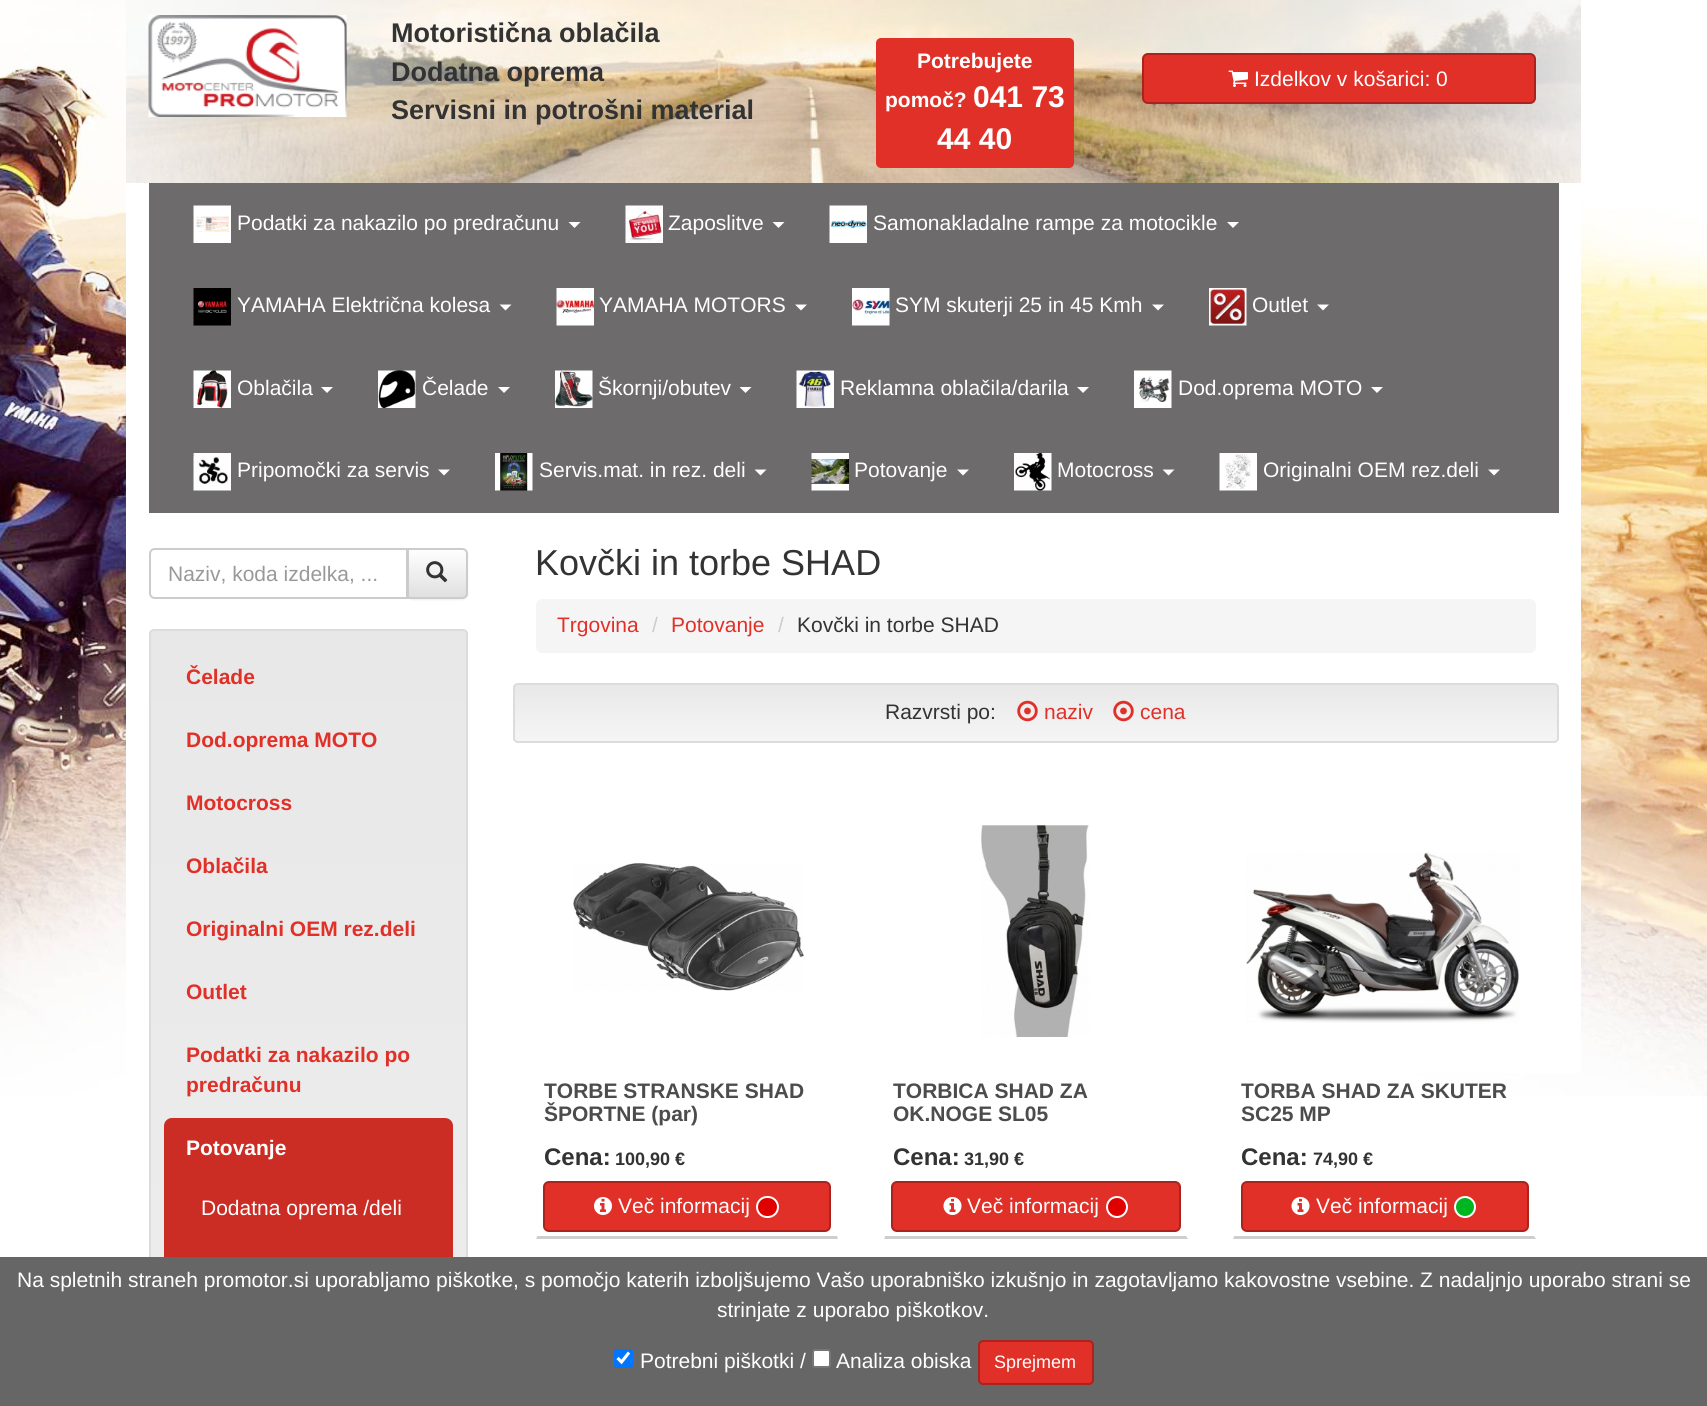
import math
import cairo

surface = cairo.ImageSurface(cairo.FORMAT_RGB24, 1707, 1406)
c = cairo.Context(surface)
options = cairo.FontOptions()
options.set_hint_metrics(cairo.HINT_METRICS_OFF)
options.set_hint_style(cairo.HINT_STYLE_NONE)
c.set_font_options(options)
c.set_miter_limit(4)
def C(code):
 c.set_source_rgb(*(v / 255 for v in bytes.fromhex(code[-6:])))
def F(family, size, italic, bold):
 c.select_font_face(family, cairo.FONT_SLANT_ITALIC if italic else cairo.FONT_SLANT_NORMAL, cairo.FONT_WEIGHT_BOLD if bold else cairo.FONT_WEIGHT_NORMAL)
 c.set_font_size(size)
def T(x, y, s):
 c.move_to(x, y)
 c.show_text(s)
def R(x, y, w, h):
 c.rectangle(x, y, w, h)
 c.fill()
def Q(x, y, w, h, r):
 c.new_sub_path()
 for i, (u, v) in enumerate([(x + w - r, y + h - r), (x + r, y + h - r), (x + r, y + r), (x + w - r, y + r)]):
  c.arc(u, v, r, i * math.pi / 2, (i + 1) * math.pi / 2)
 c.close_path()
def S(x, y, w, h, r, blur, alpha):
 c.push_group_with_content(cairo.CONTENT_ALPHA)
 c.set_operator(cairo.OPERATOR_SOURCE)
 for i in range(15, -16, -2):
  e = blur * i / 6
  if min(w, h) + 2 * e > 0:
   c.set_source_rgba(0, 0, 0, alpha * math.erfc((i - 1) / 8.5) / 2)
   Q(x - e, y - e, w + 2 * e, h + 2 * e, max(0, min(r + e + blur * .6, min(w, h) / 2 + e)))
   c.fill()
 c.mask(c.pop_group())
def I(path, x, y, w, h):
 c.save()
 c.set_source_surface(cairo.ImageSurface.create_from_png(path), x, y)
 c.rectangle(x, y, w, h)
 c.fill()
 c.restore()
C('ffffff')
c.paint()
I('1.png',0,0,1707,1096)
I('2.png',126,0,1455,183)
I('3.png',148,15,199,102)
F('Liberation Sans',27,0,1)
C('333333')
T(391,42,'Motoristična oblačila')
T(391,81,'Dodatna oprema')
T(391,119,'Servisni in potrošni material')
C('e13028')
Q(876,38,198,130,5)
c.fill()
F('Liberation Sans',21,0,1)
C('ffffff')
T(917,68,'Potrebujete')
T(885,107,'pomoč?')
F('Liberation Sans',30,0,1)
T(973,107,'041 73')
T(937,149,'44 40')
C('e13028')
Q(1143,54,392,49,5)
c.fill_preserve()
C('aa231e')
c.stroke()
I('4.png',1228,70,20,17)
F('Liberation Sans',21,0,0)
C('ffffff')
T(1254,86,'Izdelkov v košarici: 0')
R(126,183,1455,890)
C('6d6b6b')
R(149,183,1410,330)
I('5.png',193,205,38,38)
C('ffffff')
T(237,230,'Podatki za nakazilo po predračunu')
c.new_path()
c.move_to(568.5,222)
c.line_to(580.5,222)
c.line_to(574.5,228)
c.close_path()
c.fill()
I('6.png',625,205,38,38)
T(668,230,'Zaposlitve')
c.new_path()
c.move_to(772.5,222)
c.line_to(784.5,222)
c.line_to(778.5,228)
c.close_path()
c.fill()
I('7.png',829,205,38,38)
T(873,230,'Samonakladalne rampe za motocikle')
c.new_path()
c.move_to(1227,222)
c.line_to(1239,222)
c.line_to(1233,228)
c.close_path()
c.fill()
I('8.png',193,288,38,38)
T(237,312,'YAMAHA Električna kolesa')
c.new_path()
c.move_to(499.5,304.5)
c.line_to(511.5,304.5)
c.line_to(505.5,310.5)
c.close_path()
c.fill()
I('9.png',556,288,38,38)
T(599,312,'YAMAHA MOTORS')
c.new_path()
c.move_to(795,304.5)
c.line_to(807,304.5)
c.line_to(801,310.5)
c.close_path()
c.fill()
I('10.png',852,288,38,38)
T(895,312,'SYM skuterji 25 in 45 Kmh')
c.new_path()
c.move_to(1152,304.5)
c.line_to(1164,304.5)
c.line_to(1158,310.5)
c.close_path()
c.fill()
I('11.png',1209,288,38,38)
T(1252,312,'Outlet')
c.new_path()
c.move_to(1317,304.5)
c.line_to(1329,304.5)
c.line_to(1323,310.5)
c.close_path()
c.fill()
I('12.png',193,370,38,38)
T(237,395,'Oblačila')
c.new_path()
c.move_to(321,387)
c.line_to(333,387)
c.line_to(327,393)
c.close_path()
c.fill()
I('13.png',378,370,38,38)
T(422,395,'Čelade')
c.new_path()
c.move_to(498,387)
c.line_to(510,387)
c.line_to(504,393)
c.close_path()
c.fill()
I('14.png',555,370,38,38)
T(598,395,'Škornji/obutev')
c.new_path()
c.move_to(739.5,387)
c.line_to(751.5,387)
c.line_to(745.5,393)
c.close_path()
c.fill()
I('15.png',796,370,38,38)
T(840,395,'Reklamna oblačila/darila')
c.new_path()
c.move_to(1077,387)
c.line_to(1089,387)
c.line_to(1083,393)
c.close_path()
c.fill()
I('16.png',1134,370,38,38)
T(1178,395,'Dod.oprema MOTO')
c.new_path()
c.move_to(1371,387)
c.line_to(1383,387)
c.line_to(1377,393)
c.close_path()
c.fill()
I('17.png',193,453,38,38)
T(237,477,'Pripomočki za servis')
c.new_path()
c.move_to(438,469.5)
c.line_to(450,469.5)
c.line_to(444,475.5)
c.close_path()
c.fill()
I('18.png',495,453,38,38)
T(539,477,'Servis.mat. in rez. deli')
c.new_path()
c.move_to(754.5,469.5)
c.line_to(766.5,469.5)
c.line_to(760.5,475.5)
c.close_path()
c.fill()
I('19.png',811,453,38,38)
T(854,477,'Potovanje')
c.new_path()
c.move_to(957,469.5)
c.line_to(969,469.5)
c.line_to(963,475.5)
c.close_path()
c.fill()
I('20.png',1014,453,38,38)
T(1057,477,'Motocross')
c.new_path()
c.move_to(1162.5,469.5)
c.line_to(1174.5,469.5)
c.line_to(1168.5,475.5)
c.close_path()
c.fill()
I('21.png',1219,453,38,38)
T(1263,477,'Originalni OEM rez.deli')
c.new_path()
c.move_to(1488,469.5)
c.line_to(1500,469.5)
c.line_to(1494,475.5)
c.close_path()
c.fill()
c.new_path()
c.move_to(155,549)
c.line_to(407,549)
c.line_to(407,598)
c.line_to(155,598)
c.curve_to(152,598,150,596,150,593)
c.line_to(150,554)
c.curve_to(150,551,152,549,155,549)
c.close_path()
C('cccccc')
c.stroke()
C('999999')
T(168,581,'Naziv, koda izdelka, ...')
C('000000')
S(407,549,61,51,6,1,.07)
c.save()
c.new_path()
c.move_to(407,548)
c.line_to(462,548)
c.curve_to(465.5,548,468,550.5,468,554)
c.line_to(468,593)
c.curve_to(468,596.5,465.5,599,462,599)
c.line_to(407,599)
c.close_path()
c.clip()
gradient = cairo.LinearGradient(437,549,437,597)
gradient.add_color_stop_rgba(0,1,1,1,1)
gradient.add_color_stop_rgba(1,0.878,0.878,0.878,1)
c.set_source(gradient)
R(409,549,59,48)
c.restore()
c.set_source_rgba(1,1,1,0.15)
c.new_path()
c.move_to(408,550)
c.line_to(463,550)
c.curve_to(467,552,466,559,466,562)
c.line_to(466,595)
c.curve_to(467,594,467,593,467,592)
c.line_to(467,554)
c.curve_to(467,551,465,549,462,549)
c.line_to(408,549)
c.close_path()
c.fill()
c.new_path()
c.move_to(408,549)
c.line_to(462,549)
c.curve_to(465,549,467,551,467,554)
c.line_to(467,593)
c.curve_to(467,596,465,598,462,598)
c.line_to(408,598)
c.close_path()
C('cccccc')
c.stroke()
I('22.png',426,561,22,22)
c.save()
Q(149,629,319,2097,5)
c.clip()
gradient = cairo.LinearGradient(308,630,308,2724)
gradient.add_color_stop_rgba(0,0.91,0.91,0.91,1)
gradient.add_color_stop_rgba(1,0.961,0.961,0.961,1)
c.set_source(gradient)
R(149,630,319,627)
c.restore()
Q(150,630,317,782,4)
C('dcdcdc')
c.stroke()
F('Liberation Sans',21,0,1)
C('e13028')
T(186,684,'Čelade')
T(186,747,'Dod.oprema MOTO')
T(186,810,'Motocross')
T(186,873,'Oblačila')
T(186,936,'Originalni OEM rez.deli')
T(186,999,'Outlet')
T(186,1062,'Podatki za nakazilo po')
T(186,1092,'predračunu')
C('cb2c23')
c.new_path()
c.move_to(172,1118)
c.line_to(445,1118)
c.curve_to(449.5,1118,453,1121.5,453,1126)
c.line_to(453,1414)
c.line_to(164,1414)
c.line_to(164,1126)
c.curve_to(164,1121.5,167.5,1118,172,1118)
c.close_path()
c.fill()
C('ffffff')
T(186,1155,'Potovanje')
F('Liberation Sans',21,0,0)
T(201,1215,'Dodatna oprema /deli')
F('Liberation Sans',36,0,0)
C('333333')
T(535,575,'Kovčki in torbe SHAD')
C('f5f5f5')
Q(536,599,1000,54,6)
c.fill()
F('Liberation Sans',21,0,0)
C('e13028')
T(557,632,'Trgovina')
C('cccccc')
T(652,632,'/')
C('e13028')
T(671,632,'Potovanje')
C('cccccc')
T(778,632,'/')
C('333333')
T(797,632,'Kovčki in torbe SHAD')
c.save()
Q(513,683,1046,60,5)
c.clip()
gradient = cairo.LinearGradient(1036,684,1036,741)
gradient.add_color_stop_rgba(0,0.91,0.91,0.91,1)
gradient.add_color_stop_rgba(1,0.961,0.961,0.961,1)
c.set_source(gradient)
R(513,684,1046,57)
c.restore()
Q(514,684,1044,58,4)
C('dcdcdc')
c.stroke()
C('333333')
T(885,719,'Razvrsti po:')
I('23.png',1017,700,21,22)
C('e13028')
T(1044,719,'naziv')
I('23.png',1113,700,21,22)
T(1140,719,'cena')
C('cecece')
c.new_path()
c.move_to(838,1239)
c.line_to(536,1239)
c.line_to(537,1236)
c.line_to(837,1236)
c.close_path()
c.fill()
C('ffffff')
c.new_path()
c.move_to(536,1239)
c.line_to(536,780)
c.line_to(537,782)
c.line_to(537,1236)
c.close_path()
c.fill()
I('24.png',573,863,231,128)
F('Liberation Sans',21,0,1)
C('4c4c4c')
T(544,1098,'TORBE STRANSKE SHAD')
T(544,1121,'ŠPORTNE (par)')
F('Liberation Sans',24,0,1)
C('333333')
T(544,1165,'Cena:')
F('Liberation Sans',18,0,1)
T(615,1165,'100,90 €')
C('e13028')
Q(544,1182,286,49,5)
c.fill_preserve()
C('aa231e')
c.stroke()
I('25.png',594,1197,18,18)
F('Liberation Sans',21,0,0)
C('ffffff')
T(618,1213,'Več informacij')
C('e10000')
Q(757,1197,21,20,10)
c.fill_preserve()
C('ffffff')
c.stroke()
C('cecece')
c.new_path()
c.move_to(1188,1239)
c.line_to(884,1239)
c.line_to(885,1236)
c.line_to(1186,1236)
c.close_path()
c.fill()
C('ffffff')
c.new_path()
c.move_to(884,1239)
c.line_to(884,780)
c.line_to(885,782)
c.line_to(885,1236)
c.close_path()
c.fill()
I('26.png',981,825,108,212)
F('Liberation Sans',21,0,1)
C('4c4c4c')
T(893,1098,'TORBICA SHAD ZA')
T(893,1121,'OK.NOGE SL05')
F('Liberation Sans',24,0,1)
C('333333')
T(893,1165,'Cena:')
F('Liberation Sans',18,0,1)
T(964,1165,'31,90 €')
C('e13028')
Q(892,1182,288,49,5)
c.fill_preserve()
C('aa231e')
c.stroke()
I('27.png',943,1197,19,18)
F('Liberation Sans',21,0,0)
C('ffffff')
T(967,1213,'Več informacij')
C('e10000')
c.new_path()
c.arc(1117,1207,10,0,2 * math.pi)
c.fill_preserve()
C('ffffff')
c.stroke()
C('cecece')
c.new_path()
c.move_to(1536,1239)
c.line_to(1233,1239)
c.line_to(1234,1236)
c.line_to(1534,1236)
c.close_path()
c.fill()
C('ffffff')
c.new_path()
c.move_to(1233,1239)
c.line_to(1233,780)
c.line_to(1234,782)
c.line_to(1234,1236)
c.close_path()
c.fill()
I('28.png',1246,852,274,171)
F('Liberation Sans',21,0,1)
C('4c4c4c')
T(1241,1098,'TORBA SHAD ZA SKUTER')
T(1241,1121,'SC25 MP')
F('Liberation Sans',24,0,1)
C('333333')
T(1241,1165,'Cena:')
F('Liberation Sans',18,0,1)
T(1313,1165,'74,90 €')
C('e13028')
Q(1242,1182,286,49,5)
c.fill_preserve()
C('aa231e')
c.stroke()
I('27.png',1291,1197,19,18)
F('Liberation Sans',21,0,0)
C('ffffff')
T(1316,1213,'Več informacij')
C('00b522')
c.new_path()
c.arc(1465,1207,10,0,2 * math.pi)
c.fill_preserve()
C('ffffff')
c.stroke()
C('666666')
R(0,1257,1707,149)
C('ffffff')
T(17,1287,'Na spletnih straneh promotor.si uporabljamo piškotke, s pomočjo katerih izboljšujemo Vašo uporabniško izkušnjo in zagotavljamo kakovostne vsebine. Z nadaljnjo uporabo strani se')
T(717,1317,'strinjate z uporabo piškotkov.')
C('0075ff')
Q(614,1349,19,19,3)
c.fill()
c.new_path()
c.move_to(617.5,1358)
c.line_to(621.5,1362)
c.line_to(629,1352.5)
C('ffffff')
c.set_line_width(3.1)
c.stroke()
T(640,1368,'Potrebni piškotki /')
Q(813,1350,17,17,2)
c.fill_preserve()
C('767676')
c.set_line_width(2)
c.stroke()
C('ffffff')
T(836,1368,'Analiza obiska')
C('e13028')
Q(979,1341,114,43,4)
c.fill_preserve()
C('aa231e')
c.stroke()
F('Liberation Sans',18,0,0)
C('ffffff')
T(994,1368,'Sprejmem')
surface.write_to_png('o.png')
